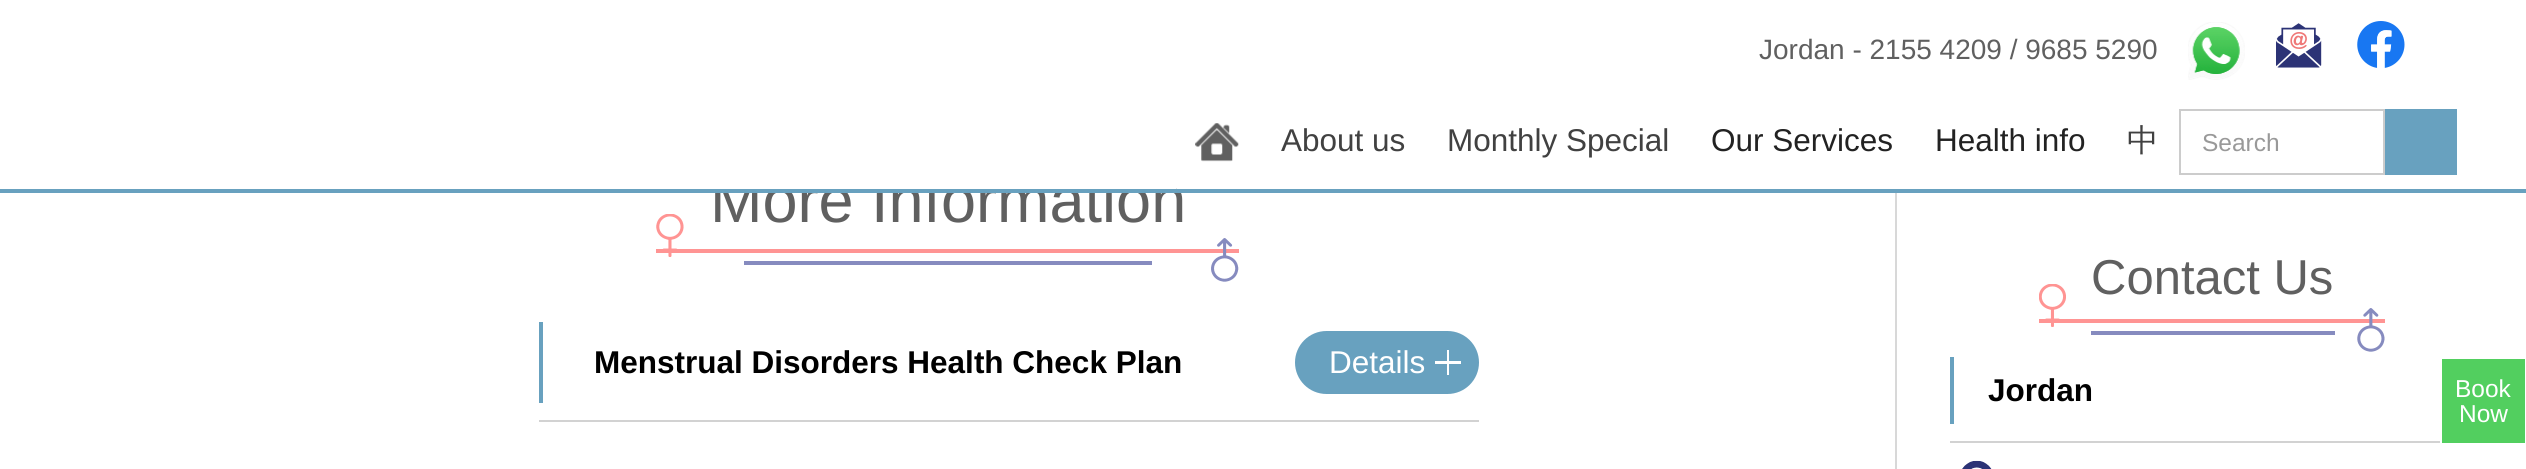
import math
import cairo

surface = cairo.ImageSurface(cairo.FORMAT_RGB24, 2526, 469)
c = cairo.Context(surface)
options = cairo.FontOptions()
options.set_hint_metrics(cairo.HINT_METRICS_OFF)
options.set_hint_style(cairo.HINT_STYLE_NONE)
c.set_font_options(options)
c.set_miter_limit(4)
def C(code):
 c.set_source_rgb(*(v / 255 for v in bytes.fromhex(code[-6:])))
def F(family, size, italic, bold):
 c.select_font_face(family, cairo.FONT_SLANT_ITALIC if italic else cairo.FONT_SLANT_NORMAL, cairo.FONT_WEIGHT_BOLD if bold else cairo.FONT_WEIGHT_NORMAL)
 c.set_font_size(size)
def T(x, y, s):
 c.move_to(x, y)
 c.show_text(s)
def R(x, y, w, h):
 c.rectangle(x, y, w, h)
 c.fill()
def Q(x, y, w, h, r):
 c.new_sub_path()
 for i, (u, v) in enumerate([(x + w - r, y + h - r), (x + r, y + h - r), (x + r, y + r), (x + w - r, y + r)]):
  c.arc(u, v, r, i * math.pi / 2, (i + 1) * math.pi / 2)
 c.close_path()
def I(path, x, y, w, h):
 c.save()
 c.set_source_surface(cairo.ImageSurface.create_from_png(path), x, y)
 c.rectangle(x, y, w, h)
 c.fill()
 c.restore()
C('ffffff')
c.paint()
F('Liberation Sans',63,0,0)
C('606060')
T(710,222,'More Information')
C('ffffff')
R(714,176,462,13)
C('68a1bf')
R(0,189,2526,4)
F('Liberation Sans',28,0,0)
C('606060')
T(1759,59,'Jordan - 2155 4209 / 9685 5290')
I('1.png',2188,22,57,58)
I('2.png',2276,23,46,45)
I('3.png',2357,21,48,47)
I('4.png',1195,123,44,39)
F('Liberation Sans',31.5,0,0)
C('414141')
T(1281,151,'About us')
T(1447,151,'Monthly Special')
C('222222')
T(1711,151,'Our Services')
T(1935,151,'Health info')
F('WenQuanYi Zen Hei Medium',31.5,0,0)
C('414141')
T(2127,151,'中')
c.rectangle(2180,110,204,64)
C('cccccc')
c.stroke()
F('Liberation Sans',24.5,0,0)
C('999999')
T(2202,151,'Search')
C('68a1bf')
R(2385,109,72,66)
C('ff9493')
R(656,249,583,4)
I('5.png',656,214,28,43)
C('868bbf')
R(744,261,408,4)
I('6.png',1211,238,28,44)
C('68a1bf')
R(539,322,4,81)
F('Liberation Sans',31.5,0,1)
C('000000')
T(594,373,'Menstrual Disorders Health Check Plan')
C('68a1bf')
Q(1295,331,184,63,31.5)
c.fill()
F('Liberation Sans',31.5,0,0)
C('ffffff')
T(1329,373,'Details')
R(1447,350,2,25)
R(1435,361,26,3)
C('d2d2d2')
R(539,420,940,2)
C('d8d8d8')
R(1895,193,2,276)
C('ff9493')
R(2039,319,346,4)
F('Liberation Sans',49,0,0)
C('606060')
T(2091,294,'Contact Us')
I('7.png',2039,284,27,43)
C('868bbf')
R(2091,331,244,4)
I('8.png',2357,308,28,44)
C('68a1bf')
R(1950,357,4,67)
F('Liberation Sans',31.5,0,1)
C('000000')
T(1988,401,'Jordan')
C('d2d2d2')
R(1950,441,490,2)
I('9.png',1962,460,30,9)
C('52cf5f')
R(2442,359,83,84)
F('Liberation Sans',24.5,0,0)
C('ffffff')
T(2455,397,'Book')
T(2459,422,'Now')
surface.write_to_png('o.png')
